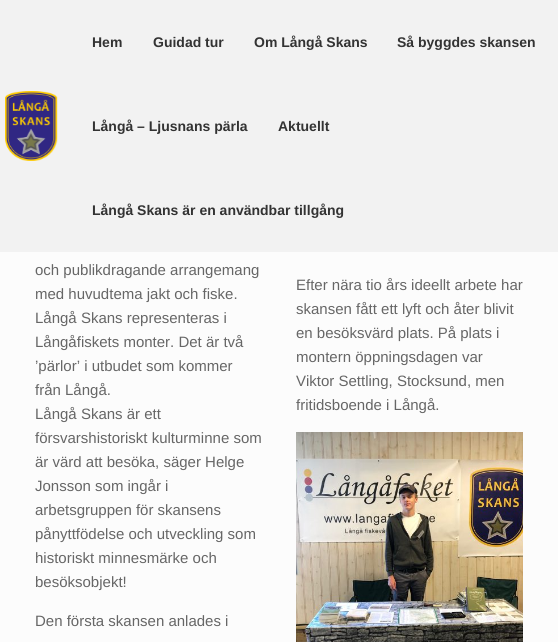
import math
import cairo

surface = cairo.ImageSurface(cairo.FORMAT_RGB24, 558, 642)
c = cairo.Context(surface)
options = cairo.FontOptions()
options.set_hint_metrics(cairo.HINT_METRICS_OFF)
options.set_hint_style(cairo.HINT_STYLE_NONE)
c.set_font_options(options)
c.set_miter_limit(4)
def C(code):
 c.set_source_rgb(*(v / 255 for v in bytes.fromhex(code[-6:])))
def F(family, size, italic, bold):
 c.select_font_face(family, cairo.FONT_SLANT_ITALIC if italic else cairo.FONT_SLANT_NORMAL, cairo.FONT_WEIGHT_BOLD if bold else cairo.FONT_WEIGHT_NORMAL)
 c.set_font_size(size)
def T(x, y, s):
 c.move_to(x, y)
 c.show_text(s)
def R(x, y, w, h):
 c.rectangle(x, y, w, h)
 c.fill()
def I(path, x, y, w, h):
 c.save()
 c.set_source_surface(cairo.ImageSurface.create_from_png(path), x, y)
 c.rectangle(x, y, w, h)
 c.fill()
 c.restore()
C('fcfcfc')
c.paint()
C('f2f2f2')
R(0,0,558,252)
I('1.png',5,91,53,70)
F('Liberation Sans',14,0,1)
C('333333')
T(92,47,'Hem')
T(153,47,'Guidad tur')
T(254,47,'Om Långå Skans')
T(397,47,'Så byggdes skansen')
T(92,131,'Långå – Ljusnans pärla')
T(278,131,'Aktuellt')
T(92,215,'Långå Skans är en användbar tillgång')
F('Liberation Sans',15,0,0)
C('666666')
T(35,275,'och publikdragande arrangemang')
T(35,299,'med huvudtema jakt och fiske.')
T(35,323,'Långå Skans representeras i')
T(35,347,'Långåfiskets monter. Det är två')
T(35,371,'’pärlor’ i utbudet som kommer')
T(35,395,'från Långå.')
T(35,419,'Långå Skans är ett')
T(35,443,'försvarshistoriskt kulturminne som')
T(35,467,'är värd att besöka, säger Helge')
T(35,491,'Jonsson som ingår i')
T(35,515,'arbetsgruppen för skansens')
T(35,539,'pånyttfödelse och utveckling som')
T(35,563,'historiskt minnesmärke och')
T(35,587,'besöksobjekt!')
T(296,290,'Efter nära tio års ideellt arbete har')
T(296,314,'skansen fått ett lyft och åter blivit')
T(296,338,'en besöksvärd plats. På plats i')
T(296,362,'montern öppningsdagen var')
T(296,386,'Viktor Settling, Stocksund, men')
T(296,410,'fritidsboende i Långå.')
T(35,626,'Den första skansen anlades i')
I('2.png',296,432,227,210)
surface.write_to_png('o.png')
